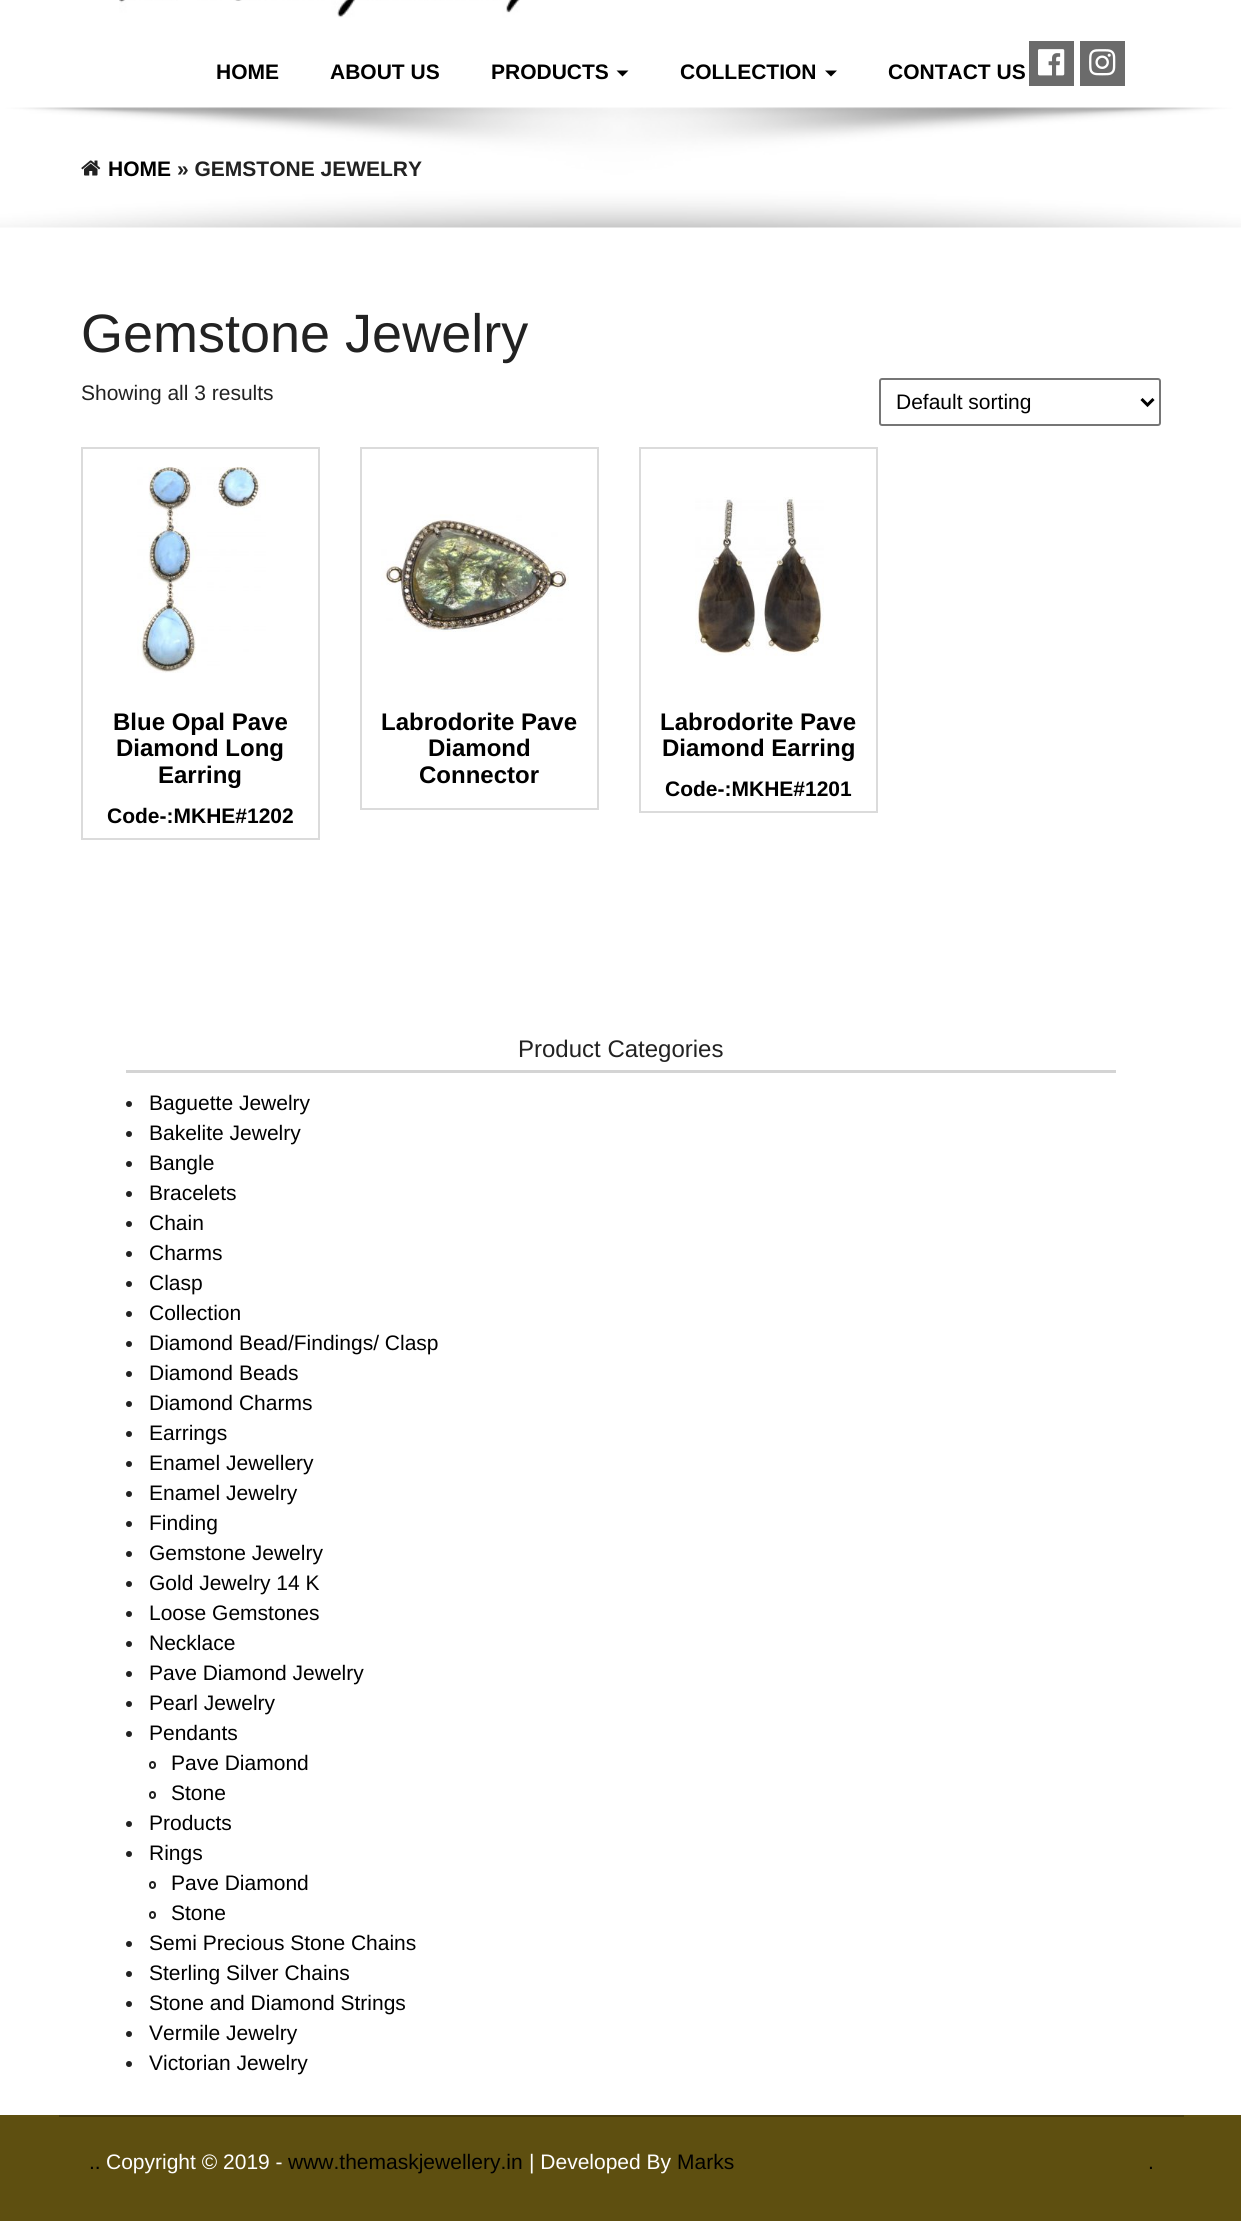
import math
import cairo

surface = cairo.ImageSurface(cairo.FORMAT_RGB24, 1241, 2221)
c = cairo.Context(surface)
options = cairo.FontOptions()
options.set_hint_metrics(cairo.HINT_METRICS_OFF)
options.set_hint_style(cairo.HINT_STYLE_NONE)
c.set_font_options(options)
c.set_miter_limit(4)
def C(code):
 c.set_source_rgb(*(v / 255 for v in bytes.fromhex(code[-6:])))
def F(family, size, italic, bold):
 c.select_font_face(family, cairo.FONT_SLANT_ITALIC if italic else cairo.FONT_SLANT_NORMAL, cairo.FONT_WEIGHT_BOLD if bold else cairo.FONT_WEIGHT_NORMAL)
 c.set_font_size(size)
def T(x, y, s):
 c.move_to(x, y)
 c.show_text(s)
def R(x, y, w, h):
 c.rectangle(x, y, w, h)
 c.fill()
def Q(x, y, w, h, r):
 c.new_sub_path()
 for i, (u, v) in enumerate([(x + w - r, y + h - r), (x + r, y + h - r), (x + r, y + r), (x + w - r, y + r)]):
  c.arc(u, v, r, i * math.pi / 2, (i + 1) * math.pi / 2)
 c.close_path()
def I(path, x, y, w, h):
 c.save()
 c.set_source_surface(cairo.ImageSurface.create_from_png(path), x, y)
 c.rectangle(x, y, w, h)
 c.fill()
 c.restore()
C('ffffff')
c.paint()
I('1.png',119,0,401,18)
C('6b6b6b')
R(1029,41,45,45)
I('2.png',1038,49,27,27)
R(1080,41,45,45)
I('3.png',1089,49,27,27)
F('Liberation Sans',21,0,1)
C('000000')
T(216,79,'HOME')
T(330,79,'ABOUT US')
T(491,79,'PRODUCTS')
c.new_path()
c.move_to(616.5,70.5)
c.line_to(628.5,70.5)
c.line_to(622.5,76.5)
c.close_path()
c.fill()
T(680,79,'COLLECTION')
c.new_path()
c.move_to(825,70.5)
c.line_to(837,70.5)
c.line_to(831,76.5)
c.close_path()
c.fill()
T(888,79,'CONTACT US')
I('4.png',0,107,1241,121)
I('5.png',81,160,20,16)
T(108,176,'HOME')
C('222222')
T(177,176,'» GEMSTONE JEWELRY')
F('Liberation Sans',54,0,0)
T(81,352,'Gemstone Jewelry')
F('Liberation Sans',21,0,0)
T(81,400,'Showing all 3 results')
Q(880,379,280,46,2)
C('767676')
c.stroke()
c.new_path()
c.move_to(1141.5,399)
c.line_to(1147.5,405)
c.line_to(1153.5,399)
C('000000')
c.set_line_width(3)
c.stroke()
T(896,409,'Default sorting')
c.rectangle(82,448,237,391)
C('dbdbdb')
c.set_line_width(2)
c.stroke()
I('6.png',137,467,129,206)
F('Liberation Sans',24,0,1)
C('000000')
T(113,730,'Blue Opal Pave')
T(116,756,'Diamond Long')
T(158,783,'Earring')
F('Liberation Sans',21,0,1)
T(107,823,'Code-:MKHE#1202')
c.rectangle(361,448,237,361)
C('dbdbdb')
c.stroke()
I('7.png',381,514,188,118)
F('Liberation Sans',24,0,1)
C('000000')
T(381,730,'Labrodorite Pave')
T(428,756,'Diamond')
T(419,783,'Connector')
c.rectangle(640,448,237,364)
C('dbdbdb')
c.stroke()
I('8.png',695,497,129,159)
C('000000')
T(660,730,'Labrodorite Pave')
T(662,756,'Diamond Earring')
F('Liberation Sans',21,0,1)
T(665,796,'Code-:MKHE#1201')
C('d4d4d4')
R(126,1070,990,3)
F('Liberation Sans',24,0,0)
C('222222')
T(518,1057,'Product Categories')
c.new_path()
c.arc(129,1104,3,0,2 * math.pi)
c.fill()
F('Liberation Sans',21,0,0)
C('000000')
T(149,1110,'Baguette Jewelry')
C('222222')
c.new_path()
c.arc(129,1134,3,0,2 * math.pi)
c.fill()
C('000000')
T(149,1140,'Bakelite Jewelry')
C('222222')
c.new_path()
c.arc(129,1164,3,0,2 * math.pi)
c.fill()
C('000000')
T(149,1170,'Bangle')
C('222222')
c.new_path()
c.arc(129,1194,3,0,2 * math.pi)
c.fill()
C('000000')
T(149,1200,'Bracelets')
C('222222')
c.new_path()
c.arc(129,1224,3,0,2 * math.pi)
c.fill()
C('000000')
T(149,1230,'Chain')
C('222222')
c.new_path()
c.arc(129,1254,3,0,2 * math.pi)
c.fill()
C('000000')
T(149,1260,'Charms')
C('222222')
c.new_path()
c.arc(129,1284,3,0,2 * math.pi)
c.fill()
C('000000')
T(149,1290,'Clasp')
C('222222')
c.new_path()
c.arc(129,1314,3,0,2 * math.pi)
c.fill()
C('000000')
T(149,1320,'Collection')
C('222222')
c.new_path()
c.arc(129,1344,3,0,2 * math.pi)
c.fill()
C('000000')
T(149,1350,'Diamond Bead/Findings/ Clasp')
C('222222')
c.new_path()
c.arc(129,1374,3,0,2 * math.pi)
c.fill()
C('000000')
T(149,1380,'Diamond Beads')
C('222222')
c.new_path()
c.arc(129,1404,3,0,2 * math.pi)
c.fill()
C('000000')
T(149,1410,'Diamond Charms')
C('222222')
c.new_path()
c.arc(129,1434,3,0,2 * math.pi)
c.fill()
C('000000')
T(149,1440,'Earrings')
C('222222')
c.new_path()
c.arc(129,1464,3,0,2 * math.pi)
c.fill()
C('000000')
T(149,1470,'Enamel Jewellery')
C('222222')
c.new_path()
c.arc(129,1494,3,0,2 * math.pi)
c.fill()
C('000000')
T(149,1500,'Enamel Jewelry')
C('222222')
c.new_path()
c.arc(129,1524,3,0,2 * math.pi)
c.fill()
C('000000')
T(149,1530,'Finding')
C('222222')
c.new_path()
c.arc(129,1554,3,0,2 * math.pi)
c.fill()
C('000000')
T(149,1560,'Gemstone Jewelry')
C('222222')
c.new_path()
c.arc(129,1584,3,0,2 * math.pi)
c.fill()
C('000000')
T(149,1590,'Gold Jewelry 14 K')
C('222222')
c.new_path()
c.arc(129,1614,3,0,2 * math.pi)
c.fill()
C('000000')
T(149,1620,'Loose Gemstones')
C('222222')
c.new_path()
c.arc(129,1644,3,0,2 * math.pi)
c.fill()
C('000000')
T(149,1650,'Necklace')
C('222222')
c.new_path()
c.arc(129,1674,3,0,2 * math.pi)
c.fill()
C('000000')
T(149,1680,'Pave Diamond Jewelry')
C('222222')
c.new_path()
c.arc(129,1704,3,0,2 * math.pi)
c.fill()
C('000000')
T(149,1710,'Pearl Jewelry')
C('222222')
c.new_path()
c.arc(129,1734,3,0,2 * math.pi)
c.fill()
C('000000')
T(149,1740,'Pendants')
Q(150,1762,5,6,2.5)
C('222222')
c.stroke()
C('000000')
T(171,1770,'Pave Diamond')
Q(150,1792,5,6,2.5)
C('222222')
c.stroke()
C('000000')
T(171,1800,'Stone')
C('222222')
c.new_path()
c.arc(129,1824,3,0,2 * math.pi)
c.fill()
C('000000')
T(149,1830,'Products')
C('222222')
c.new_path()
c.arc(129,1854,3,0,2 * math.pi)
c.fill()
C('000000')
T(149,1860,'Rings')
Q(150,1882,5,6,2.5)
C('222222')
c.stroke()
C('000000')
T(171,1890,'Pave Diamond')
Q(150,1912,5,6,2.5)
C('222222')
c.stroke()
C('000000')
T(171,1920,'Stone')
C('222222')
c.new_path()
c.arc(129,1944,3,0,2 * math.pi)
c.fill()
C('000000')
T(149,1950,'Semi Precious Stone Chains')
C('222222')
c.new_path()
c.arc(129,1974,3,0,2 * math.pi)
c.fill()
C('000000')
T(149,1980,'Sterling Silver Chains')
C('222222')
c.new_path()
c.arc(129,2004,3,0,2 * math.pi)
c.fill()
C('000000')
T(149,2010,'Stone and Diamond Strings')
C('222222')
c.new_path()
c.arc(129,2034,3,0,2 * math.pi)
c.fill()
C('000000')
T(149,2040,'Vermile Jewelry')
C('222222')
c.new_path()
c.arc(129,2064,3,0,2 * math.pi)
c.fill()
C('000000')
T(149,2070,'Victorian Jewelry')
C('5e4f10')
R(0,2115,1241,106)
C('473b0c')
R(59,2115,1125,2)
C('000000')
T(89,2169,'..')
C('ffffff')
T(106,2169,'Copyright © 2019 -')
C('000000')
T(288,2169,'www.themaskjewellery.in')
C('ffffff')
T(529,2169,'| Developed By')
C('000000')
T(677,2169,'Marks')
T(1148,2169,'.')
surface.write_to_png('o.png')
